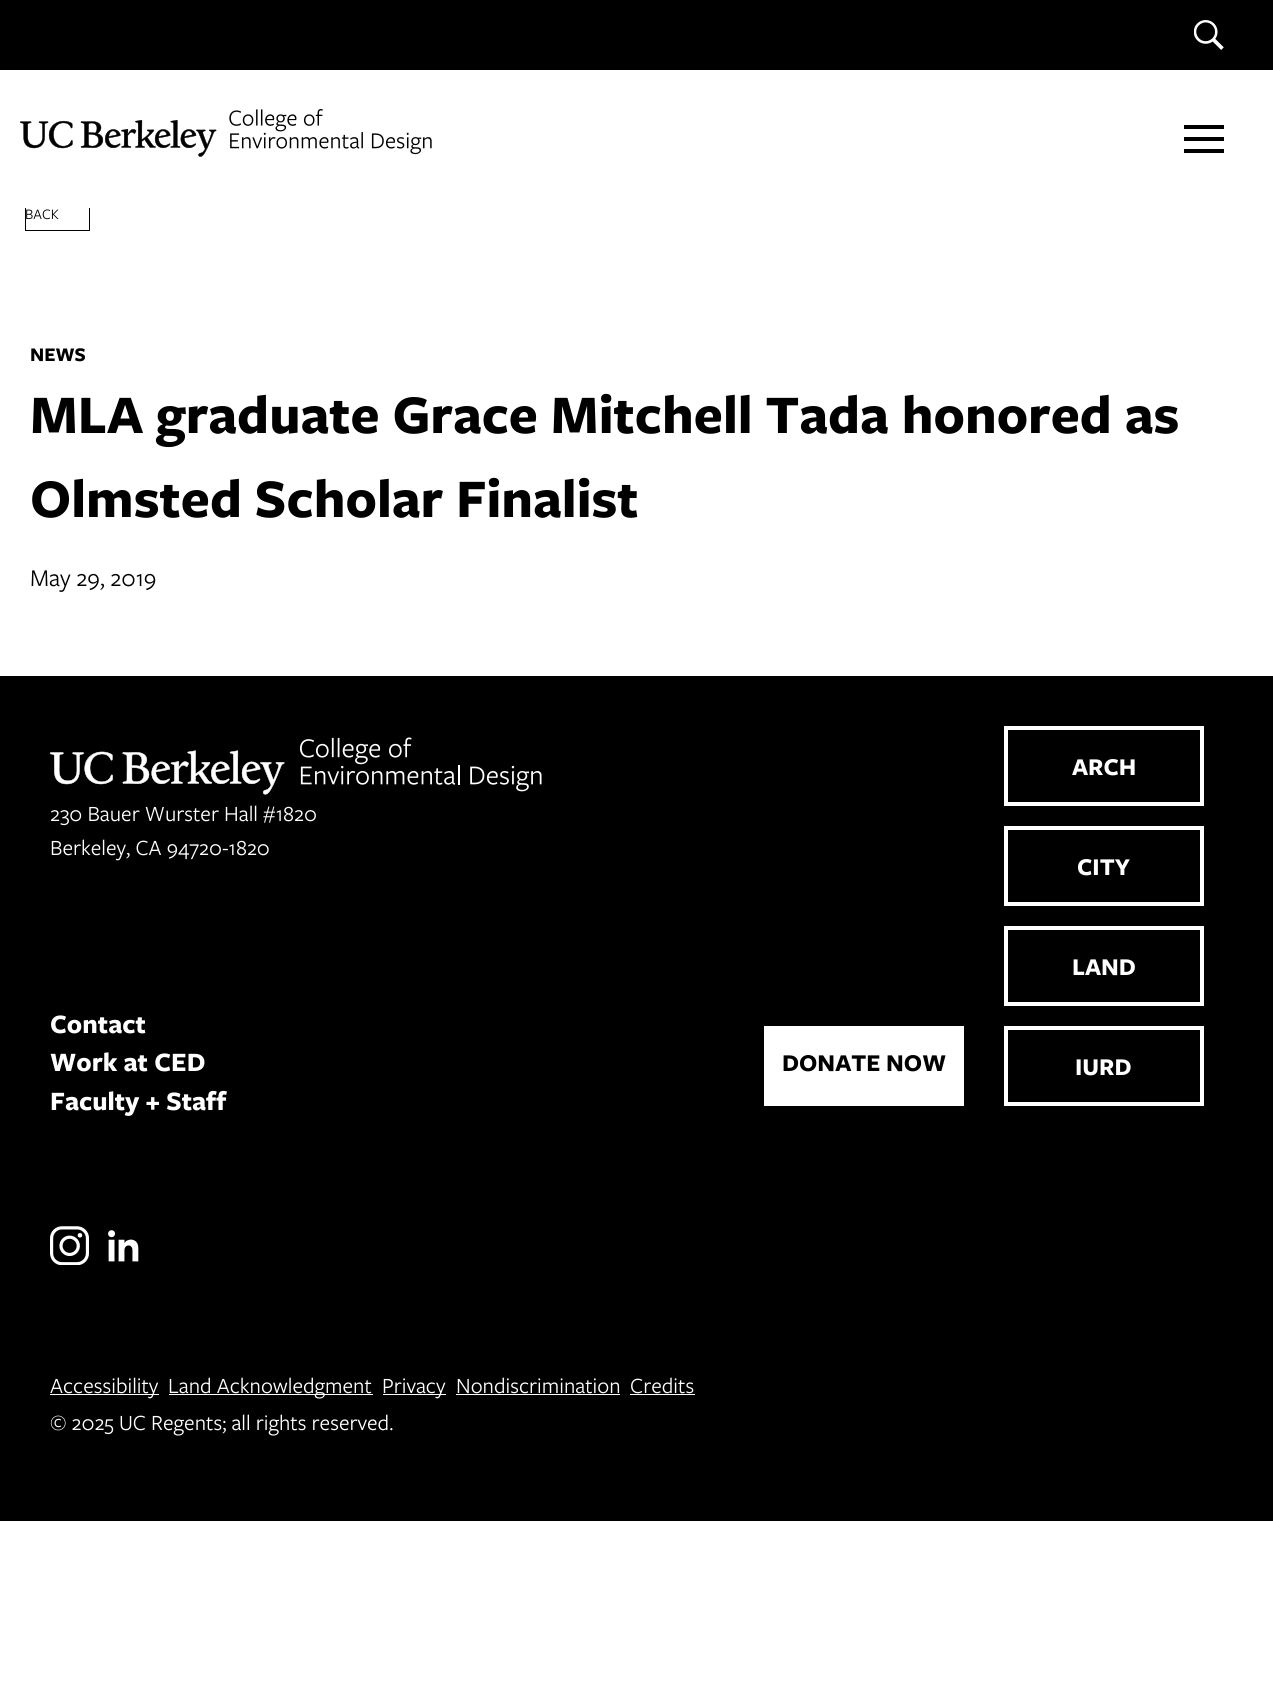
import math
import cairo

surface = cairo.ImageSurface(cairo.FORMAT_RGB24, 1273, 1698)
c = cairo.Context(surface)
options = cairo.FontOptions()
options.set_hint_metrics(cairo.HINT_METRICS_OFF)
options.set_hint_style(cairo.HINT_STYLE_NONE)
c.set_font_options(options)
c.set_miter_limit(4)
def C(code):
 c.set_source_rgb(*(v / 255 for v in bytes.fromhex(code[-6:])))
def F(family, size, italic, bold):
 c.select_font_face(family, cairo.FONT_SLANT_ITALIC if italic else cairo.FONT_SLANT_NORMAL, cairo.FONT_WEIGHT_BOLD if bold else cairo.FONT_WEIGHT_NORMAL)
 c.set_font_size(size)
def T(x, y, s):
 c.move_to(x, y)
 c.show_text(s)
def R(x, y, w, h):
 c.rectangle(x, y, w, h)
 c.fill()
def I(path, x, y, w, h):
 c.save()
 c.set_source_surface(cairo.ImageSurface.create_from_png(path), x, y)
 c.rectangle(x, y, w, h)
 c.fill()
 c.restore()
C('ffffff')
c.paint()
c.rectangle(25.5,135.5,64,95)
C('000000')
c.set_line_width(1)
c.stroke()
C('ffffff')
R(25,135,65,73)
C('000000')
R(0,0,1273,70)
I('1.png',1194,20,30,30)
I('2.png',20,109,412,48)
c.new_path()
c.move_to(1184,125)
c.line_to(1224,125)
c.line_to(1224,129)
c.line_to(1184,129)
c.close_path()
c.move_to(1184,137)
c.line_to(1224,137)
c.line_to(1224,141)
c.line_to(1184,141)
c.close_path()
c.move_to(1184,149)
c.line_to(1224,149)
c.line_to(1224,153)
c.line_to(1184,153)
c.close_path()
c.fill()
F('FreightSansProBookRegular',15,0,0)
T(25,219,'BACK')
F('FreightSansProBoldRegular',20,0,1)
T(30,361,'NEWS')
F('FreightSansProBoldRegular',56.25,0,1)
T(30,433,'MLA graduate Grace Mitchell Tada honored as')
T(30,517,'Olmsted Scholar Finalist')
F('FreightSansProBookRegular',25,0,0)
T(30,586,'May 29, 2019')
R(0,676,1273,845)
I('3.png',50,737,492,58)
F('FreightSansProBookRegular',22.5,0,0)
C('ffffff')
T(50,821,'230 Bauer Wurster Hall #1820')
T(50,855,'Berkeley, CA 94720-1820')
F('FreightSansProBoldRegular',27.5,0,1)
T(50,1033,'Contact')
T(50,1071,'Work at CED')
T(50,1110,'Faculty + Staff')
R(764,1026,200,80)
F('FreightSansProBoldRegular',25,0,1)
C('000000')
T(782,1071,'DONATE NOW')
c.rectangle(1006,728,196,76)
C('ffffff')
c.set_line_width(4)
c.stroke()
T(1072,775,'ARCH')
c.rectangle(1006,828,196,76)
c.stroke()
T(1077,875,'CITY')
c.rectangle(1006,928,196,76)
c.stroke()
T(1072,975,'LAND')
c.rectangle(1006,1028,196,76)
c.stroke()
T(1075,1075,'IURD')
I('4.png',50,1226,39,39)
I('5.png',108,1230,31,32)
R(50,1394,109,1)
F('FreightSansProBookRegular',22.5,0,0)
T(50,1393,'Accessibility')
R(169,1394,204,1)
T(168,1393,'Land Acknowledgment')
R(383,1394,63,1)
T(382,1393,'Privacy')
T(456,1393,'Nondiscrimination')
R(456,1394,164,1)
T(630,1393,'Credits')
R(630,1394,65,1)
T(50,1430,'© 2025 UC Regents; all rights reserved.')
surface.write_to_png('o.png')
